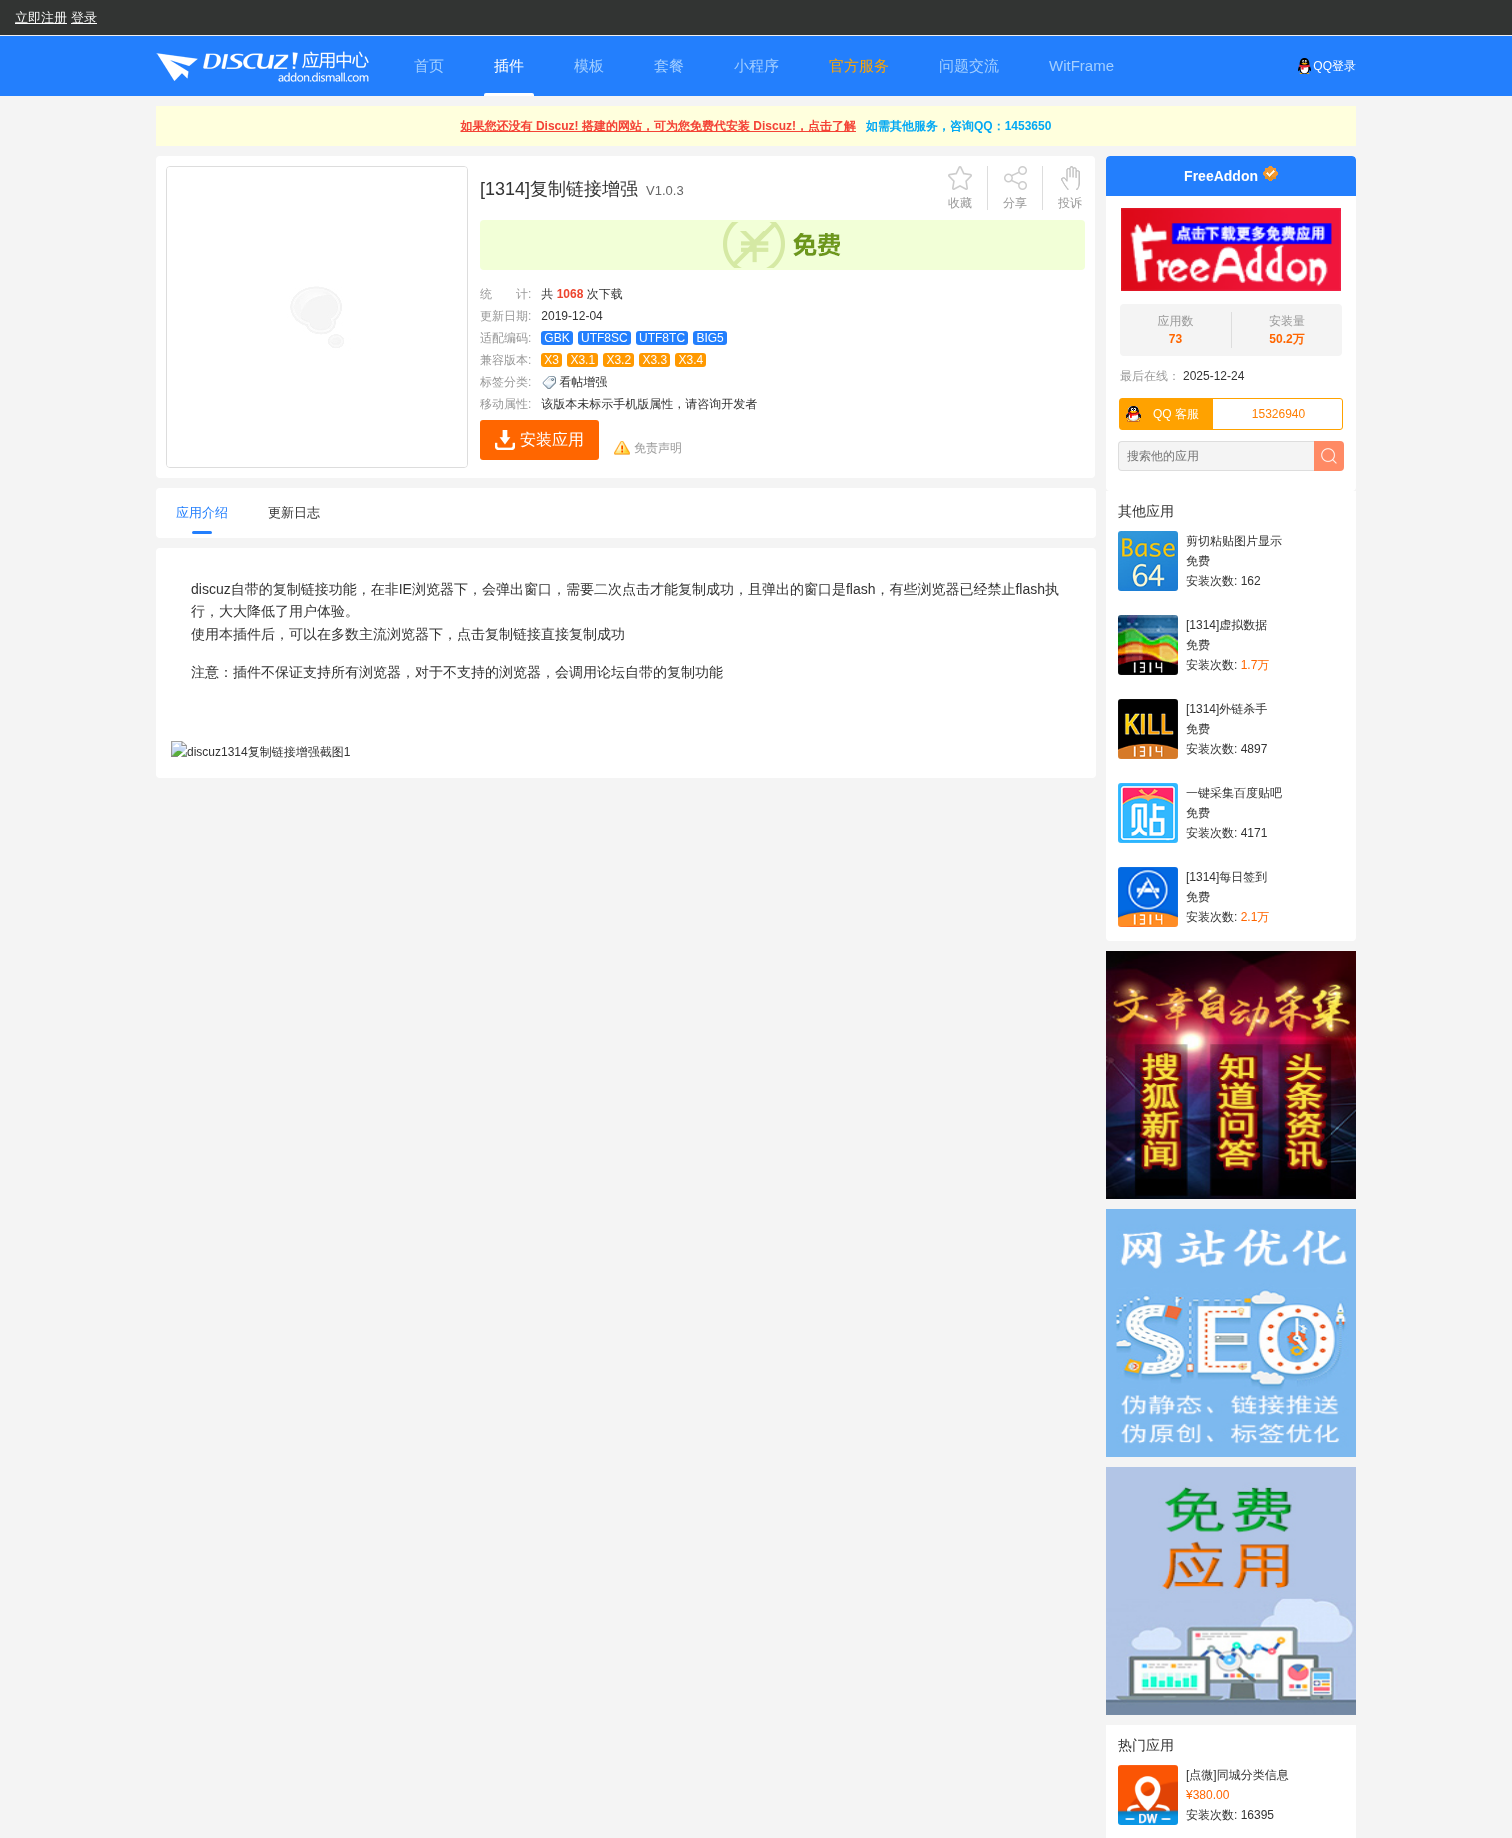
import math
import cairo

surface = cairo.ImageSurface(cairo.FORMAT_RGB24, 1512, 1838)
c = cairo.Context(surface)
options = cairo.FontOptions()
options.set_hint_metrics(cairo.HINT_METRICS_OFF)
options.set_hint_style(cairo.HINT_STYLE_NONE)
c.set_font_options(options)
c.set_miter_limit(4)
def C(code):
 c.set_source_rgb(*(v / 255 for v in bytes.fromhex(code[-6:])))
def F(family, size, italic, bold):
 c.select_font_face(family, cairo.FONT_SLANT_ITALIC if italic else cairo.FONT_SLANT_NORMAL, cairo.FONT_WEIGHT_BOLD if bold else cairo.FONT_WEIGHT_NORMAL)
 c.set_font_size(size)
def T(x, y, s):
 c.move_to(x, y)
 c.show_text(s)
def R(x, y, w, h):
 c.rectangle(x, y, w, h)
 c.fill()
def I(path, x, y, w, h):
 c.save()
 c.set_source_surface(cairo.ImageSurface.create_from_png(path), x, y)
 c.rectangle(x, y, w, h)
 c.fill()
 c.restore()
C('323433')
c.paint()
C('efefef')
R(0,35,1512,1)
C('ffffff')
R(15,23,52,1)
F('WenQuanYi Zen Hei Medium',13,0,0)
T(15,22,'立即注册')
R(71,23,26,1)
T(71,22,'登录')
I('1.png',0,36,1512,1802)
surface.write_to_png('o.png')
